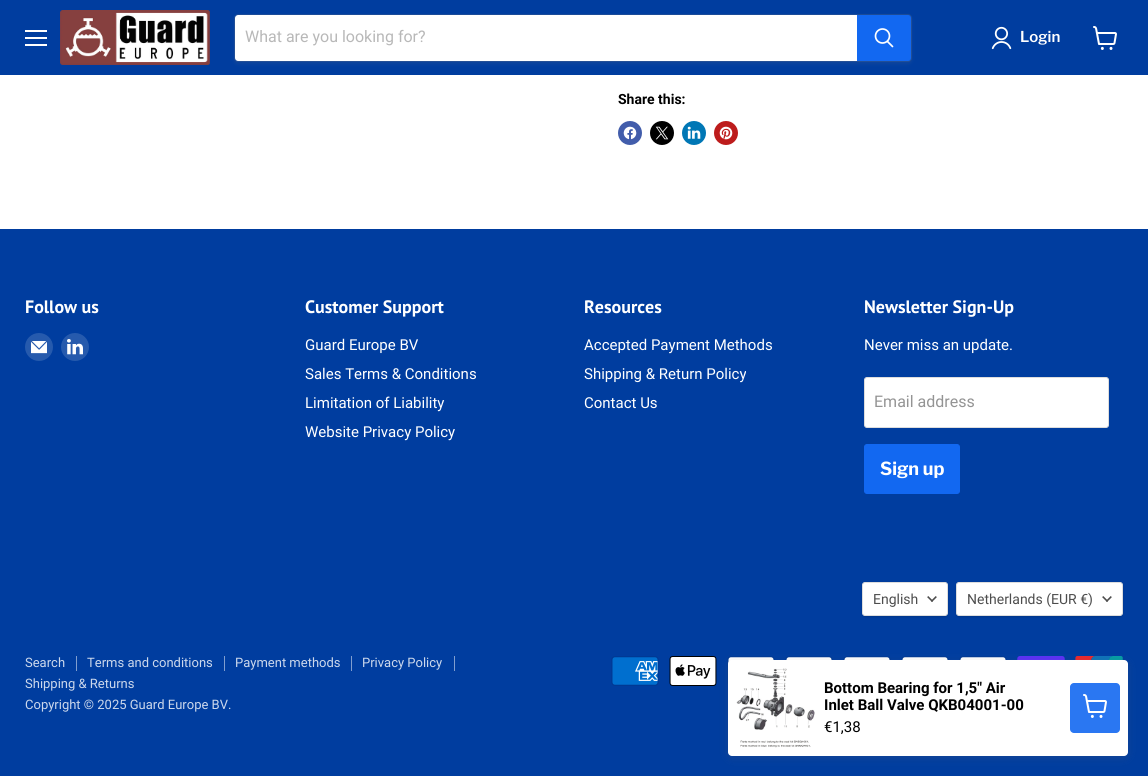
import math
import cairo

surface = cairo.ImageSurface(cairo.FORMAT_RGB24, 1148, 776)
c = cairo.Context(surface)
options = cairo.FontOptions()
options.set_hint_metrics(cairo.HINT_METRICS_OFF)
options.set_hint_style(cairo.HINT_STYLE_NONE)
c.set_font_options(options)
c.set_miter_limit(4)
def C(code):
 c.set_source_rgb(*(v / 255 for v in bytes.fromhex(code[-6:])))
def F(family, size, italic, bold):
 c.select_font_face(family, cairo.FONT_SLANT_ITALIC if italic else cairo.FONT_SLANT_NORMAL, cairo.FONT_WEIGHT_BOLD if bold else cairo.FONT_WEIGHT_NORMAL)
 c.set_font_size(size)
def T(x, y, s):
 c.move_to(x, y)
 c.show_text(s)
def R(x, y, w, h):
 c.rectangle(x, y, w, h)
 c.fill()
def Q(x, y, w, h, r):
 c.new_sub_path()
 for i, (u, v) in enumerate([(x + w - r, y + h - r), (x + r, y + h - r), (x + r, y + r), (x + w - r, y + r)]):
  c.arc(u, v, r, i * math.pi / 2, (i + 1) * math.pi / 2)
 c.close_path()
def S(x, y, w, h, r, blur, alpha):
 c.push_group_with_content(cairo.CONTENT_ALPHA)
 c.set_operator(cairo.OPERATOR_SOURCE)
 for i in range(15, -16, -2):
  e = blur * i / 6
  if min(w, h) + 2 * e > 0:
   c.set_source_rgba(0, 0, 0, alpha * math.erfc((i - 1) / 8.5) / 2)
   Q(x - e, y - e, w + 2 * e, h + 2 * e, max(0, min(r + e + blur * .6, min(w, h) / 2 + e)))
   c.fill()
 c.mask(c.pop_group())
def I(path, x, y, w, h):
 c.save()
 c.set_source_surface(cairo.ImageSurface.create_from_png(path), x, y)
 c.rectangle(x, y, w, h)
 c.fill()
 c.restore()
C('ffffff')
c.paint()
C('003d9f')
R(0,0,1148,75)
C('ffffff')
R(25,30,22,2)
R(25,37,22,2)
R(25,44,22,2)
I('1.png',60,10,150,55)
C('808080')
S(234,16,678,48,4,1.5,.11)
Q(234.5,14.5,677,47,3.5)
c.set_source_rgba(0.502,0.502,0.502,0.2)
c.set_line_width(1)
c.stroke()
C('ffffff')
c.new_path()
c.move_to(238,15)
c.line_to(857,15)
c.line_to(857,61)
c.line_to(238,61)
c.curve_to(236.5,61,235,59.5,235,58)
c.line_to(235,18)
c.curve_to(235,16.5,236.5,15,238,15)
c.close_path()
c.fill()
F('Roboto',16,0,0)
C('b8b8b8')
T(245,42,'What are you looking for?')
C('1268f1')
c.new_path()
c.move_to(857.5,15.5)
c.line_to(908,15.5)
c.curve_to(909.5,15.5,910.5,16.5,910.5,18)
c.line_to(910.5,58)
c.curve_to(910.5,59.5,909.5,60.5,908,60.5)
c.line_to(857.5,60.5)
c.close_path()
c.fill_preserve()
c.stroke()
c.new_path()
c.move_to(892.5,46.5)
c.line_to(887.5,41.5)
C('ffffff')
c.set_line_width(1.7)
c.set_line_cap(cairo.LINE_CAP_ROUND)
c.stroke()
c.arc(882.5,36,7,0,2 * math.pi)
c.set_line_cap(cairo.LINE_CAP_BUTT)
c.stroke()
I('2.png',991,26,21,24)
F('Libre Franklin SemiBold',15,0,0)
T(1020,42,'Login')
I('3.png',1093,26,24,24)
F('Roboto',14,0,1)
C('000000')
T(618,104,'Share this:')
C('425dab')
c.new_path()
c.arc(630,133,12,0,2 * math.pi)
c.fill()
I('4.png',623,126,14,14)
C('000000')
c.arc(662,133,12,0,2 * math.pi)
c.fill()
I('5.png',655,126,14,14)
C('0077b5')
c.arc(694,133,12,0,2 * math.pi)
c.fill()
I('6.png',687,126,14,13)
C('bd1c1c')
c.arc(726,133,12,0,2 * math.pi)
c.fill()
I('7.png',719,126,14,14)
C('003d9f')
R(0,229,1148,547)
I('14.png',669,656,48,30)
I('15.png',727,656,48,28)
I('16.png',785,656,48,4)
I('16.png',843,656,48,4)
I('16.png',901,656,48,4)
I('16.png',959,656,48,4)
I('17.png',1017,656,48,4)
I('18.png',1075,656,48,4)
C('636363')
S(728,662,400,96,4,4,.2)
C('ffffff')
Q(728,660,400,96,4)
c.fill()
I('8.png',736,668,79,80)
F('Roboto',15,0,1)
C('000000')
T(824,693,'Bottom Bearing for 1,5" Air')
T(824,710,'Inlet Ball Valve QKB04001-00')
F('Roboto',15,0,0)
T(824,732,'€1,38')
C('2a77f2')
Q(1070,683,50,50,4)
c.fill()
I('9.png',1083,694,24,24)
F('PT Sans',18,0,1)
C('ffffff')
T(25,313,'Follow us')
C('265aad')
c.new_path()
c.arc(39,347,14,0,2 * math.pi)
c.fill()
I('10.png',31,341,16,13)
c.arc(75,347,14,0,2 * math.pi)
c.fill()
I('11.png',67,339,16,16)
C('ffffff')
T(305,313,'Customer Support')
F('Roboto',15,0,0)
T(305,350,'Guard Europe BV')
T(305,379,'Sales Terms & Conditions')
T(305,408,'Limitation of Liability')
T(305,437,'Website Privacy Policy')
F('PT Sans',18,0,1)
T(584,313,'Resources')
F('Roboto',15,0,0)
T(584,350,'Accepted Payment Methods')
T(584,379,'Shipping & Return Policy')
T(584,408,'Contact Us')
F('PT Sans',18,0,1)
T(864,313,'Newsletter Sign-Up')
F('Roboto',15,0,0)
T(864,350,'Never miss an update.')
Q(864.5,377.5,244,50,2.5)
c.fill_preserve()
C('dddddd')
c.set_line_width(1)
c.stroke()
F('Roboto',16,0,0)
C('949494')
T(874,407,'Email address')
C('1268f1')
Q(864.5,444.5,95,49,2.5)
c.fill_preserve()
c.stroke()
F('Libre Franklin',18,0,1)
C('ffffff')
T(880,475,'Sign up')
C('000000')
S(862,583,86,34,3,1,.15)
C('ffffff')
Q(862.5,582.5,85,33,2.5)
c.fill_preserve()
C('dddddd')
c.stroke()
F('Roboto',14,0,0)
C('4d4d4d')
T(873,604,'English')
I('12.png',927,596,10,6)
C('000000')
S(956,583,167,34,3,1,.15)
C('ffffff')
Q(956.5,582.5,166,33,2.5)
c.fill_preserve()
C('dddddd')
c.stroke()
C('4d4d4d')
T(967,604,'Netherlands (EUR €)')
I('12.png',1102,596,10,6)
C('809ecf')
R(76,656,1,15)
F('Roboto',13,0,0)
C('ccd8ec')
T(25,667,'Search')
C('809ecf')
R(224,656,1,15)
C('ccd8ec')
T(87,667,'Terms and conditions')
C('809ecf')
R(351,656,1,15)
C('ccd8ec')
T(235,667,'Payment methods')
C('809ecf')
R(454,656,1,15)
C('ccd8ec')
T(362,667,'Privacy Policy')
T(25,688,'Shipping & Returns')
T(25,709,'Copyright © 2025 Guard Europe BV.')
I('13.png',611,656,48,30)
surface.write_to_png('o.png')
